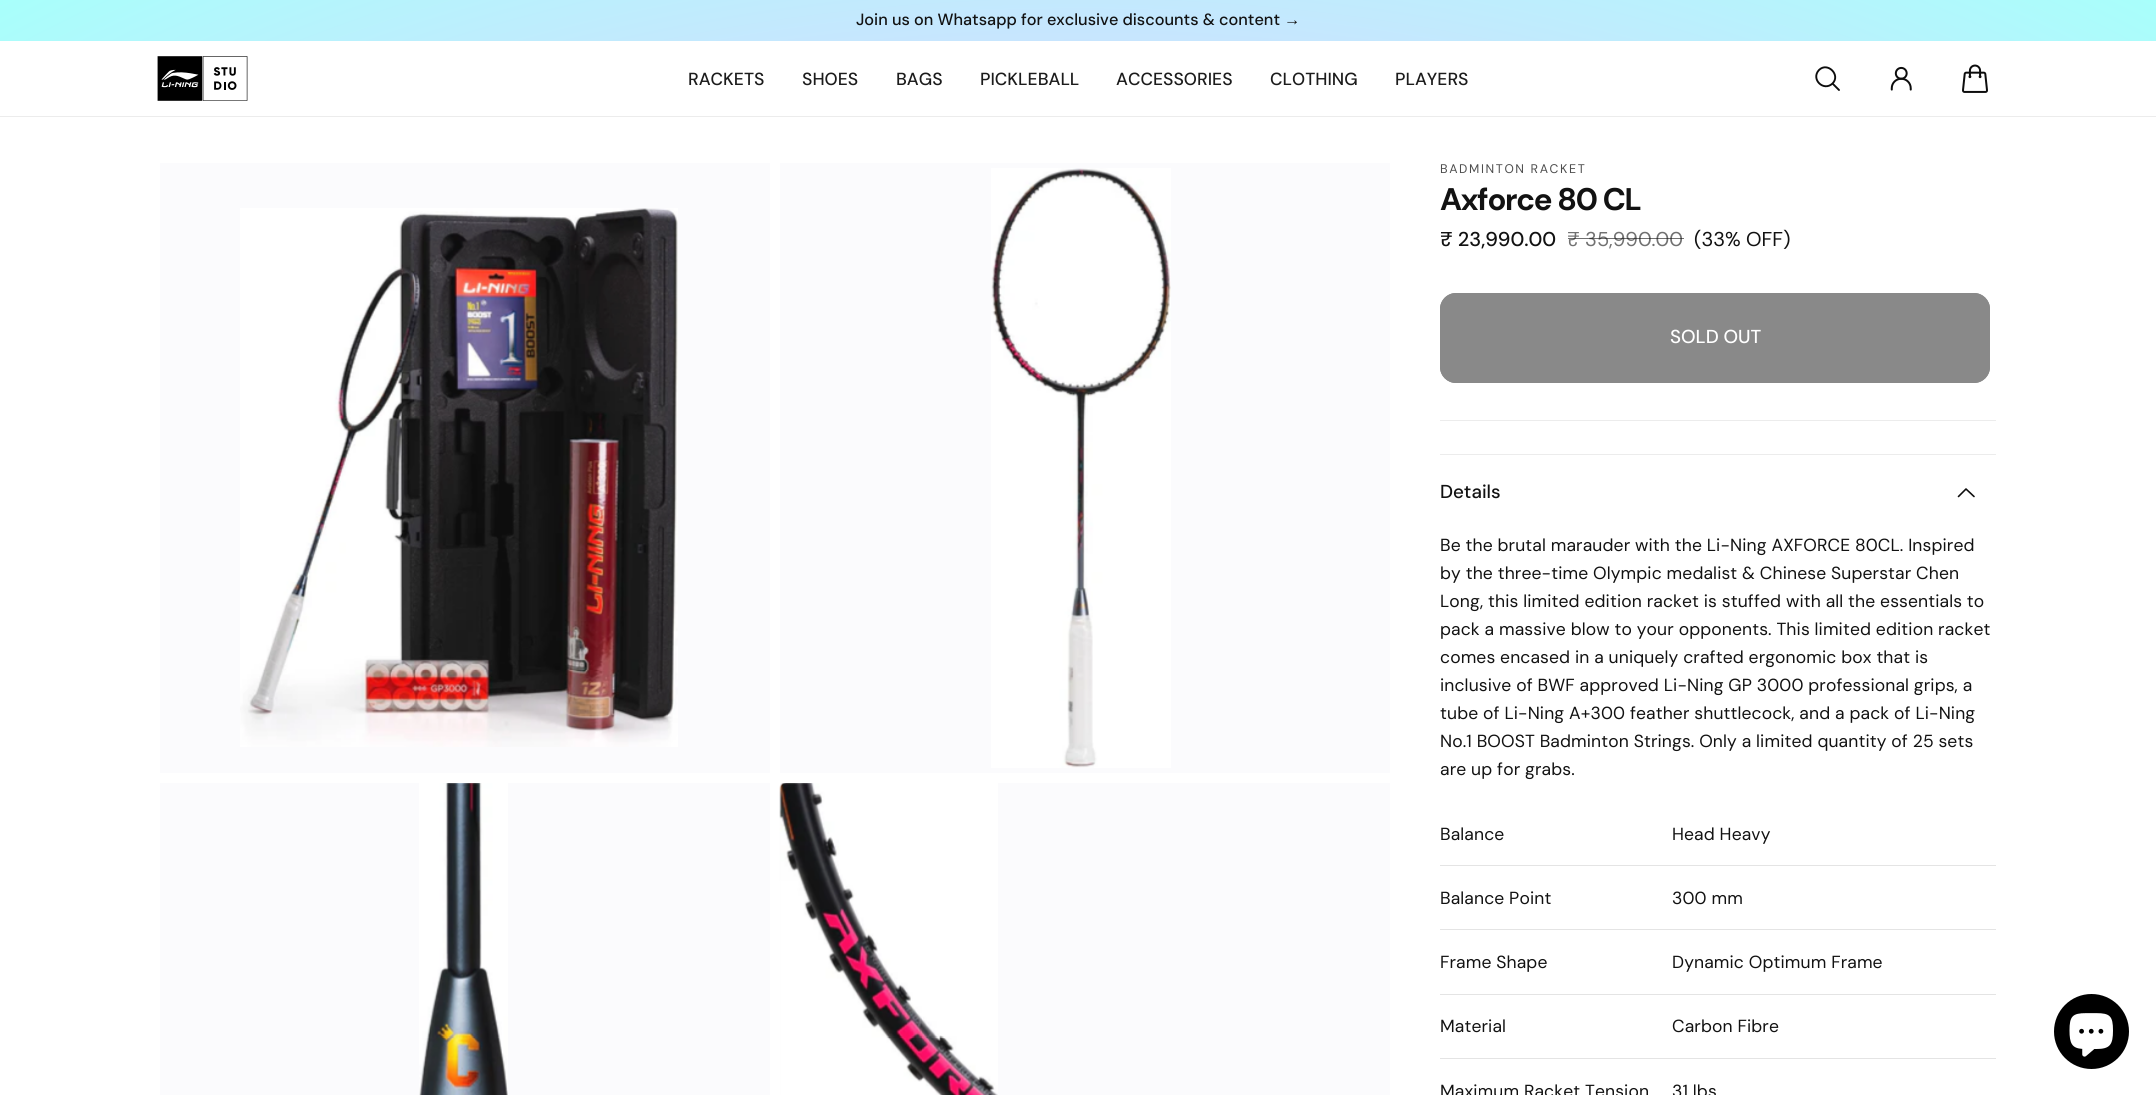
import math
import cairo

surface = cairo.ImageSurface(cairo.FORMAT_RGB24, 2156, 1095)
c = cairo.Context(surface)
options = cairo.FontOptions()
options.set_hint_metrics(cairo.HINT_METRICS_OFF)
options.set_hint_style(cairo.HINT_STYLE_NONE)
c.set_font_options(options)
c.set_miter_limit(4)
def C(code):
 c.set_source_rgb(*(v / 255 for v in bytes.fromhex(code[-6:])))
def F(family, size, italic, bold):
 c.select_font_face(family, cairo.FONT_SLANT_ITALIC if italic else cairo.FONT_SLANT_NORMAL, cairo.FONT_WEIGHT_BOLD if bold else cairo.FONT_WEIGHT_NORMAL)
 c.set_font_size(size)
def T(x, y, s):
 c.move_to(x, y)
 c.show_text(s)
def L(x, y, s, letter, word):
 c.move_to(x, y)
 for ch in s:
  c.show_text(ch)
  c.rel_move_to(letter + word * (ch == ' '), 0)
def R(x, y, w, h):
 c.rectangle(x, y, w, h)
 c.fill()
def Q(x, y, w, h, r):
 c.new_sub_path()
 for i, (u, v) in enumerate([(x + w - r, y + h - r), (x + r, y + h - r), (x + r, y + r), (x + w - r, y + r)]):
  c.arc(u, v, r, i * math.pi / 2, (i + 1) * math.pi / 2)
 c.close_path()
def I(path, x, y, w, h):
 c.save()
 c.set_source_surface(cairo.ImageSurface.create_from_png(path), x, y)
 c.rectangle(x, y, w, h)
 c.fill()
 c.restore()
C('ffffff')
c.paint()
gradient = cairo.RadialGradient(0,0,0,0,0,1)
gradient.set_matrix(cairo.Matrix(1 / 1525, 0, 0, 1 / 774, -1 * 1078 / 1525, -1 * 548 / 774))
gradient.add_color_stop_rgba(.53,0.827,0.863,1,1)
gradient.add_color_stop_rgba(1,0.659,1,0.984,1)
c.set_source(gradient)
R(0,0,2156,41)
F('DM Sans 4 Medium',16.25,0,0)
C('121212')
T(856,25,'Join us on Whatsapp for exclusive discounts & content')
F('Liberation Sans',16.25,0,0)
T(1284,25,'→')
C('ececec')
R(0,116,2156,1)
I('1.png',157,56,91,45)
F('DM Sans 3 Medium',17.5,0,0)
C('1c1c1c')
T(688,85,'RACKETS')
T(802,85,'SHOES')
T(896,85,'BAGS')
T(980,85,'PICKLEBALL')
T(1116,85,'ACCESSORIES')
T(1270,85,'CLOTHING')
T(1395,85,'PLAYERS')
c.new_path()
c.move_to(1839,90)
c.line_to(1832.5,83.5)
c.move_to(1832.5,83.5)
c.curve_to(1841,75,1827.5,61.5,1819,70)
c.curve_to(1810.5,79,1823.5,92,1832.5,83.5)
c.close_path()
C('0d0d0d')
c.set_line_width(1.9)
c.set_line_cap(cairo.LINE_CAP_ROUND)
c.set_line_join(cairo.LINE_JOIN_ROUND)
c.stroke()
I('2.png',1890,66,22,25)
I('3.png',1962,64,26,29)
C('fbfbfd')
R(160,163,610,610)
I('4.png',240,208,438,539)
R(780,163,610,610)
I('5.png',991,168,180,600)
R(160,783,610,312)
I('6.png',419,783,89,312)
R(780,783,610,312)
I('7.png',779,783,219,312)
F('DM Sans',12.5,0,0)
C('4d4d4d')
L(1440,173,'BADMINTON RACKET',1.6,0)
F('DM Sans',31.25,0,1)
C('121212')
L(1440,210,'Axforce 80 CL',-1.25,0)
F('DM Sans Medium',20,0,0)
T(1440,246,'₹ 23,990.00')
F('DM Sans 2',20,0,0)
C('717171')
T(1567,246,'₹ 35,990.00')
c.set_source_rgba(0.071,0.071,0.071,0.6)
R(1568,238,116,1)
C('121212')
T(1694,246,'(33% OFF)')
C('898989')
Q(1440,293,550,90,16)
c.fill()
Q(1440.5,293.5,549,89,15.5)
c.set_line_width(1)
c.set_line_cap(cairo.LINE_CAP_BUTT)
c.set_line_join(cairo.LINE_JOIN_MITER)
c.stroke()
F('DM Sans 2 Medium',18.75,0,0)
C('ffffff')
T(1670,343,'SOLD OUT')
C('ececec')
R(1440,420,556,1)
R(1440,454,556,1)
C('121212')
T(1440,498,'Details')
c.new_path()
c.move_to(1958.5,496.5)
c.line_to(1966,489)
c.line_to(1974,496.5)
C('0d0d0d')
c.set_line_width(1.6)
c.set_line_cap(cairo.LINE_CAP_ROUND)
c.set_line_join(cairo.LINE_JOIN_ROUND)
c.stroke()
F('DM Sans 3',17.5,0,0)
C('121212')
L(1440,551,'Be the brutal marauder with the Li-Ning AXFORCE 80CL. Inspired',.12,0)
L(1440,579,'by the three-time Olympic medalist & Chinese Superstar Chen',.12,0)
L(1440,607,'Long, this limited edition racket is stuffed with all the essentials to',.12,0)
L(1440,635,'pack a massive blow to your opponents. This limited edition racket',.12,0)
L(1440,663,'comes encased in a uniquely crafted ergonomic box that is',.12,0)
L(1440,691,'inclusive of BWF approved Li-Ning GP 3000 professional grips, a',.12,0)
L(1440,719,'tube of Li-Ning A+300 feather shuttlecock, and a pack of Li-Ning',.12,0)
L(1440,747,'No.1 BOOST Badminton Strings. Only a limited quantity of 25 sets',.12,0)
L(1440,775,'are up for grabs.',.12,0)
L(1440,840,'Balance',.12,0)
L(1672,840,'Head Heavy',.12,0)
C('e4e4e4')
R(1440,865,556,1)
C('121212')
L(1440,904,'Balance Point',.12,0)
L(1672,904,'300 mm',.12,0)
C('e4e4e4')
R(1440,929,556,1)
C('121212')
L(1440,968,'Frame Shape',.12,0)
L(1672,968,'Dynamic Optimum Frame',.12,0)
C('e4e4e4')
R(1440,994,556,1)
C('121212')
L(1440,1032,'Material',.12,0)
L(1672,1032,'Carbon Fibre',.12,0)
C('e4e4e4')
R(1440,1058,556,1)
C('121212')
L(1440,1097,'Maximum Racket Tension',.12,0)
L(1672,1097,'31 lbs',.12,0)
C('000000')
c.new_path()
c.arc(2091.5,1031.5,37.5,0,2 * math.pi)
c.fill()
I('8.png',2069,1013,44,44)
surface.write_to_png('o.png')
